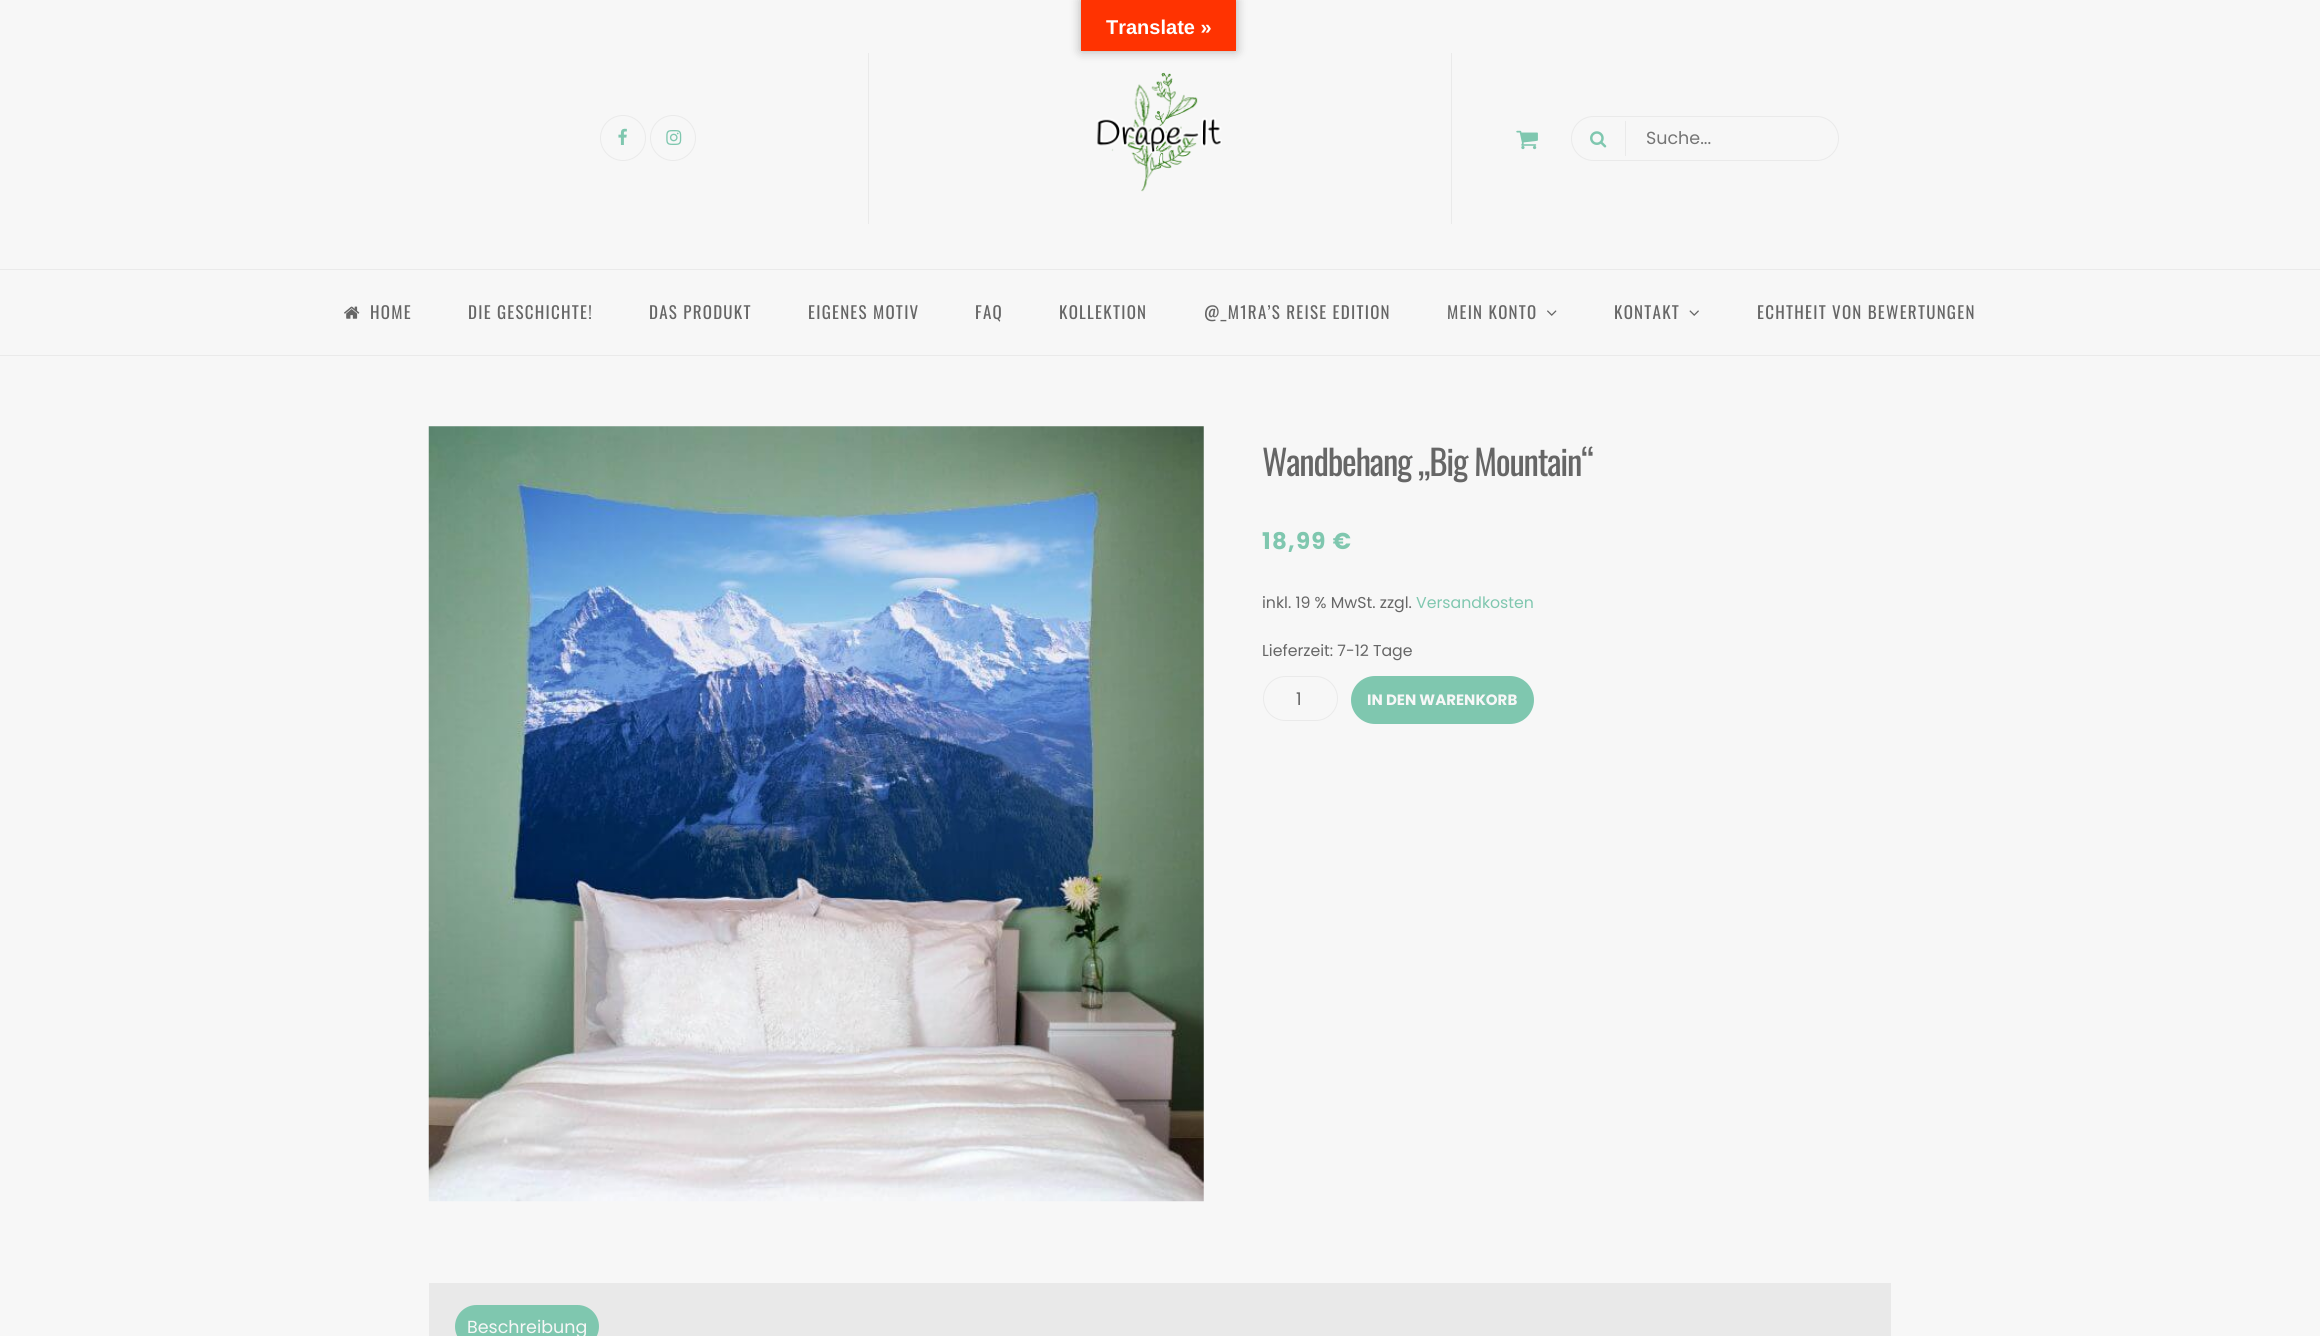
import math
import cairo

surface = cairo.ImageSurface(cairo.FORMAT_RGB24, 2320, 1336)
c = cairo.Context(surface)
options = cairo.FontOptions()
options.set_hint_metrics(cairo.HINT_METRICS_OFF)
options.set_hint_style(cairo.HINT_STYLE_NONE)
c.set_font_options(options)
c.set_miter_limit(4)
def C(code):
 c.set_source_rgb(*(v / 255 for v in bytes.fromhex(code[-6:])))
def F(family, size, italic, bold):
 c.select_font_face(family, cairo.FONT_SLANT_ITALIC if italic else cairo.FONT_SLANT_NORMAL, cairo.FONT_WEIGHT_BOLD if bold else cairo.FONT_WEIGHT_NORMAL)
 c.set_font_size(size)
def T(x, y, s):
 c.move_to(x, y)
 c.show_text(s)
def L(x, y, s, letter, word):
 c.move_to(x, y)
 for ch in s:
  c.show_text(ch)
  c.rel_move_to(letter + word * (ch == ' '), 0)
def R(x, y, w, h):
 c.rectangle(x, y, w, h)
 c.fill()
def Q(x, y, w, h, r):
 c.new_sub_path()
 for i, (u, v) in enumerate([(x + w - r, y + h - r), (x + r, y + h - r), (x + r, y + r), (x + w - r, y + r)]):
  c.arc(u, v, r, i * math.pi / 2, (i + 1) * math.pi / 2)
 c.close_path()
def S(x, y, w, h, r, blur, alpha):
 c.push_group_with_content(cairo.CONTENT_ALPHA)
 c.set_operator(cairo.OPERATOR_SOURCE)
 for i in range(15, -16, -2):
  e = blur * i / 6
  if min(w, h) + 2 * e > 0:
   c.set_source_rgba(0, 0, 0, alpha * math.erfc((i - 1) / 8.5) / 2)
   Q(x - e, y - e, w + 2 * e, h + 2 * e, max(0, min(r + e + blur * .6, min(w, h) / 2 + e)))
   c.fill()
 c.mask(c.pop_group())
def I(path, x, y, w, h):
 c.save()
 c.set_source_surface(cairo.ImageSurface.create_from_png(path), x, y)
 c.rectangle(x, y, w, h)
 c.fill()
 c.restore()
C('f7f7f7')
c.paint()
C('000000')
S(1081,0,155,51,0,5.5,.3)
C('ff3301')
R(1081,0,155,51)
F('Liberation Sans',20,0,1)
C('ffffff')
T(1106,34,'Translate »')
c.new_path()
c.arc(623,138,22.5,0,2 * math.pi)
C('eaeaea')
c.set_line_width(1)
c.stroke()
I('1.png',618,128,9,17)
c.arc(673,138,22.5,0,2 * math.pi)
c.stroke()
I('2.png',666,130,16,15)
R(1451,53,1,171)
R(868,53,1,171)
I('3.png',1097,72,125,120)
I('4.png',1516,130,22,20)
Q(1571.5,116.5,267,44,22)
c.stroke()
R(1625,121,1,35)
I('5.png',1590,131,17,17)
F('Poppins',17.5,0,0)
C('757575')
T(1646,144,'Suche...')
C('eaeaea')
R(0,269,2320,1)
R(0,355,2320,1)
I('6.png',344,306,16,13)
F('Oswald',17,0,0)
C('666666')
L(370,319,'HOME',1.25,0)
L(468,319,'DIE GESCHICHTE!',1.25,0)
L(649,319,'DAS PRODUKT',1.25,0)
L(808,319,'EIGENES MOTIV',1.25,0)
L(975,319,'FAQ',1.25,0)
L(1059,319,'KOLLEKTION',1.25,0)
L(1204,319,'@_M1RA’S REISE EDITION',1.25,0)
L(1447,319,'MEIN KONTO',1.25,0)
I('7.png',1547,310,10,6)
L(1614,319,'KONTAKT',1.25,0)
I('8.png',1689,310,10,6)
L(1757,319,'ECHTHEIT VON BEWERTUNGEN',1.25,0)
I('9.png',428,426,776,776)
F('Oswald',35,0,0)
L(1262,476,'Wandbehang „Big Mountain“',-1.25,0)
F('Poppins',23,0,1)
C('7fc7af')
L(1262,549,'18,99 €',1.25,0)
F('Poppins',15.75,0,0)
C('666666')
T(1262,608,'inkl. 19 % MwSt. zzgl.')
C('7fc7af')
T(1416,608,'Versandkosten')
C('666666')
T(1262,656,'Lieferzeit: 7-12 Tage')
Q(1263.5,676.5,74,44,22)
C('eaeaea')
c.stroke()
F('Poppins',17.5,0,0)
C('666666')
T(1296,705,'1')
C('7fc7af')
Q(1351,676,183,48,24)
c.fill()
F('Poppins',15,0,1)
C('f7f7f7')
T(1367,705,'IN DEN WARENKORB')
C('e9e9e9')
R(429,1283,1462,53)
C('7fc7af')
Q(455,1305,144,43,21.5)
c.fill()
F('Poppins',17.5,0,0)
C('f7f7f7')
T(467,1333,'Beschreibung')
surface.write_to_png('o.png')
